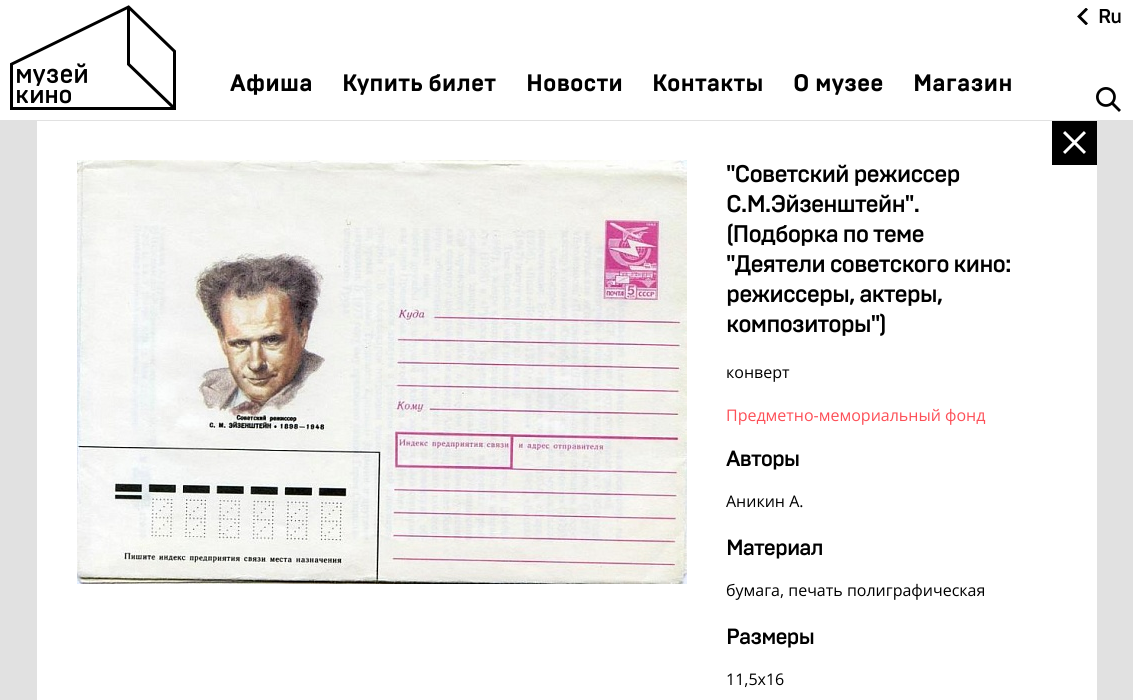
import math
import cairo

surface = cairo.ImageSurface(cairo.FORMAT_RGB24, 1133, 700)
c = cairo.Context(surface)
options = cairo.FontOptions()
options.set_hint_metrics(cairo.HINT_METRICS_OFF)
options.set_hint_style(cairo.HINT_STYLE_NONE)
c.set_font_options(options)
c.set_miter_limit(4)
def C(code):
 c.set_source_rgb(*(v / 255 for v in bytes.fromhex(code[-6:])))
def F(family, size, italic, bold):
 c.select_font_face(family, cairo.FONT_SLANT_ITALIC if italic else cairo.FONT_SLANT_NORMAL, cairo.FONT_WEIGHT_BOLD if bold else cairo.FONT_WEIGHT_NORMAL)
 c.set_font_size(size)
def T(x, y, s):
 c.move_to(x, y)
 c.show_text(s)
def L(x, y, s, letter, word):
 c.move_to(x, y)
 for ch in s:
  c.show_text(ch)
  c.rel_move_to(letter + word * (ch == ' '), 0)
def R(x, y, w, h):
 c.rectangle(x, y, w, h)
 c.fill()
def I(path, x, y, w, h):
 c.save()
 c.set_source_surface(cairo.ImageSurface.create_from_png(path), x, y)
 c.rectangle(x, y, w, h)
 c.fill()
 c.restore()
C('ffffff')
c.paint()
I('1.png',10,5,166,105)
I('2.png',1077,8,11,17)
F('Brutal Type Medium',20,0,0)
C('000000')
L(1098,23,'Ru',-1,0)
I('3.png',1096,87,25,25)
F('Brutal Type',24,0,1)
T(230,91,'Афиша')
T(342,91,'Купить билет')
T(526,91,'Новости')
T(652,91,'Контакты')
T(793,91,'О музее')
T(913,91,'Магазин')
C('e1e1e1')
R(0,120,1133,580)
C('ffffff')
R(37,121,1060,579)
C('000000')
R(1052,121,45,44)
I('4.png',1063,131,23,23)
I('5.png',77,160,610,424)
F('Brutal Type Medium',24,0,0)
L(726,182,'"Советский режиссер',-1,0)
L(726,212,'С.М.Эйзенштейн".',-1,0)
L(726,242,'(Подборка по теме',-1,0)
L(726,272,'"Деятели советского кино:',-1,0)
L(726,302,'режиссеры, актеры,',-1,0)
L(726,332,'композиторы")',-1,0)
F('Open Sans',16,0,0)
T(726,378,'конверт')
C('fd4f57')
T(726,421,'Предметно-мемориальный фонд')
F('Brutal Type Medium',22,0,0)
C('000000')
L(726,466,'Авторы',-1,0)
F('Open Sans',16,0,0)
T(726,507,'Аникин А.')
F('Brutal Type Medium',22,0,0)
L(726,555,'Материал',-1,0)
F('Open Sans',16,0,0)
T(726,596,'бумага, печать полиграфическая')
F('Brutal Type Medium',22,0,0)
L(726,644,'Размеры',-1,0)
F('Open Sans',16,0,0)
T(726,685,'11,5х16')
surface.write_to_png('o.png')
